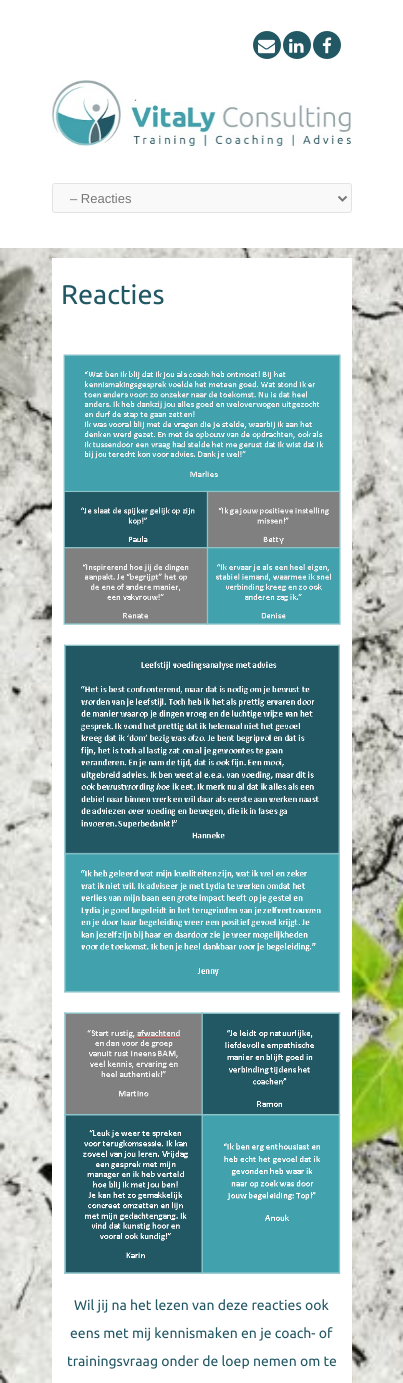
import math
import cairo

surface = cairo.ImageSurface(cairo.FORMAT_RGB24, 403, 1383)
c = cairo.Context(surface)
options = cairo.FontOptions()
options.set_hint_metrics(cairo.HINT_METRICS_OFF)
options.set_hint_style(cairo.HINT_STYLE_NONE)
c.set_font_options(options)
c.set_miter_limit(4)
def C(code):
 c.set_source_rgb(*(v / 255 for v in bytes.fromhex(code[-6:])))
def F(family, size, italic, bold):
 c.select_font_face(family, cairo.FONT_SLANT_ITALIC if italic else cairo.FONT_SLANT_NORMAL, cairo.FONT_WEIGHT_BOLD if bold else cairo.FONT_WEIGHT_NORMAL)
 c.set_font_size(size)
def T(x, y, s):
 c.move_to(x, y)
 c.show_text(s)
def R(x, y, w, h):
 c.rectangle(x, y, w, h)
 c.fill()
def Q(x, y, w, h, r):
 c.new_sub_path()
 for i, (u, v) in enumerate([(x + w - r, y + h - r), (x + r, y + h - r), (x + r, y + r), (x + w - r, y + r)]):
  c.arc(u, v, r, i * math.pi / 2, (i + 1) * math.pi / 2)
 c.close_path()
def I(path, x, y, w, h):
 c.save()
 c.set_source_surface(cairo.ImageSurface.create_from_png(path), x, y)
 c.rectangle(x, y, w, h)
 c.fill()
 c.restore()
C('ffffff')
c.paint()
I('1.png',0,248,403,1135)
C('225764')
c.arc(267,45,14,0,2 * math.pi)
c.fill()
I('2.png',258,39,17,15)
c.arc(297,45,14,0,2 * math.pi)
c.fill()
I('3.png',289,38,15,15)
c.arc(327,45,14,0,2 * math.pi)
c.fill()
I('4.png',322,37,10,17)
I('5.png',51,80,300,66)
C('f9f9f9')
Q(52.5,183.5,299,29,2.5)
c.fill_preserve()
C('e3e3e3')
c.set_line_width(1)
c.stroke()
c.new_path()
c.move_to(338.5,196.5)
c.line_to(342.5,200.5)
c.line_to(346.5,196.5)
C('777777')
c.set_line_width(2)
c.stroke()
F('Liberation Sans',13,0,0)
T(70,203,'– Reacties')
C('ffffff')
R(52,258,300,1125)
F('Ubuntu',27,0,0)
C('225764')
T(61,304,'Reacties')
I('6.png',63,354,278,271)
I('7.png',64,644,276,349)
I('8.png',64,1012,277,262)
F('Ubuntu',14,0,0)
T(74,1310,'Wil jij na het lezen van deze reacties ook')
T(70,1338,'eens met mij kennismaken en je coach- of')
T(67,1366,'trainingsvraag onder de loep nemen om te')
surface.write_to_png('o.png')
